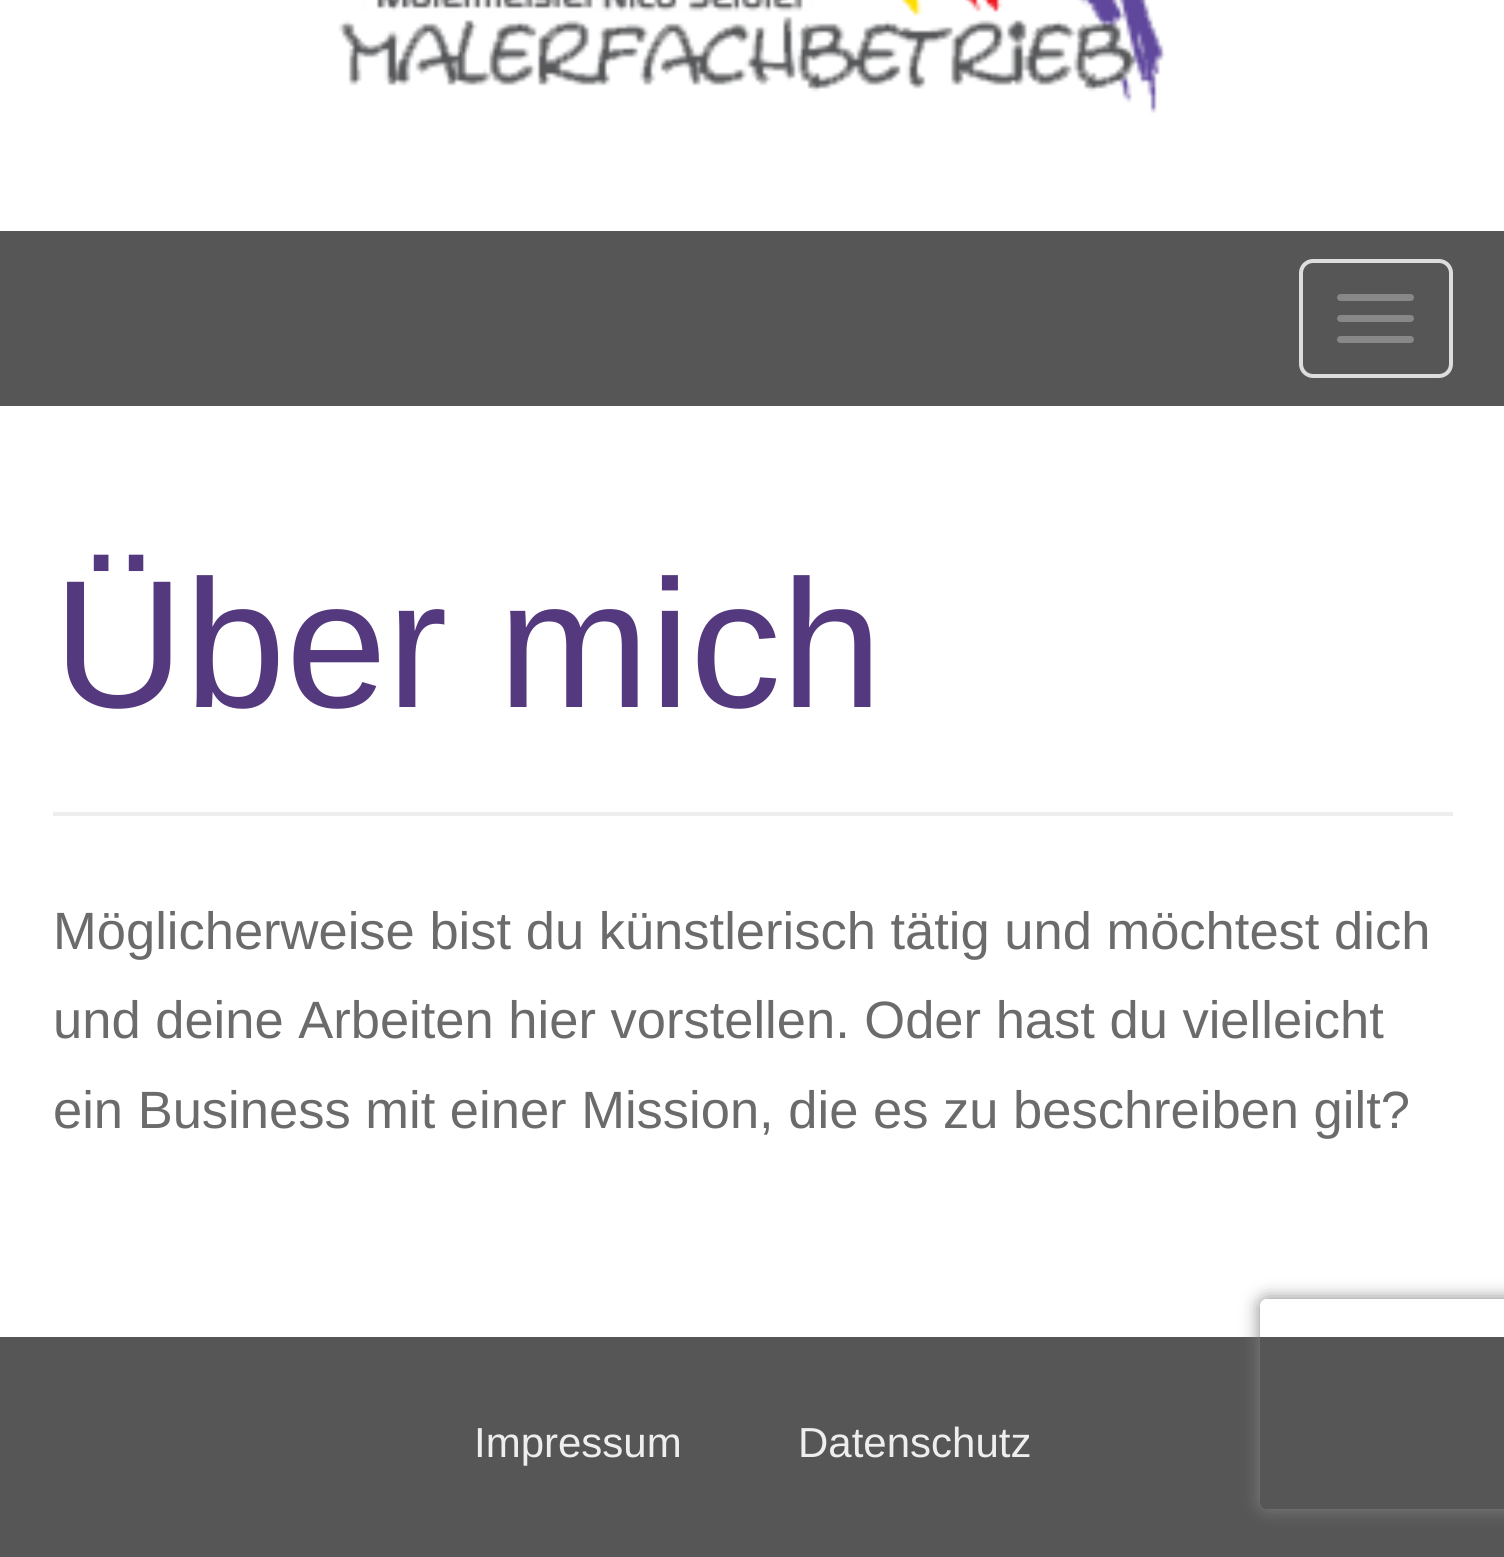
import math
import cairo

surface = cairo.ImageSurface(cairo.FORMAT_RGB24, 1504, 1557)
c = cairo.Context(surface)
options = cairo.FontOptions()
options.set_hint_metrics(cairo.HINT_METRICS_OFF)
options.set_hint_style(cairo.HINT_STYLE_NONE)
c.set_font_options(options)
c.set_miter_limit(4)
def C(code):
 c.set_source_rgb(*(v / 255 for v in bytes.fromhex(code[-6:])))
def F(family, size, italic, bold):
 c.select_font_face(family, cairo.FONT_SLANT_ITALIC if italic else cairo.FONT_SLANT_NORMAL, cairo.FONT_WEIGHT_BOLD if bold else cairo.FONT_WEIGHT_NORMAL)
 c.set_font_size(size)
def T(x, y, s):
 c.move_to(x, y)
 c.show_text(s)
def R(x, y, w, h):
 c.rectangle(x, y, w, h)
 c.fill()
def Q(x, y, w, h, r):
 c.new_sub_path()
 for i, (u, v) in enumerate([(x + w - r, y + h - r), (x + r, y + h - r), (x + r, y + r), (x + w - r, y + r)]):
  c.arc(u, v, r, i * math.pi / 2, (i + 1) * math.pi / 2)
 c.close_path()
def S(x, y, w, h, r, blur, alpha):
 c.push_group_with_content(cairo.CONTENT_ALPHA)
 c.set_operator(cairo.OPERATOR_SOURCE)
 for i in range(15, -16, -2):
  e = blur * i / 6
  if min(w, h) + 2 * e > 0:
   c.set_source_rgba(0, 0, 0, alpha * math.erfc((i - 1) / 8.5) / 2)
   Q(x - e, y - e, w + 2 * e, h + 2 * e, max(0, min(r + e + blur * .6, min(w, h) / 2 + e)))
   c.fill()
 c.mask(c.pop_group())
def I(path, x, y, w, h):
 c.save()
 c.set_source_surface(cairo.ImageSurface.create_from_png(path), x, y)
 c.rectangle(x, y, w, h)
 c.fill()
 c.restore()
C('ffffff')
c.paint()
I('1.png',338,0,828,114)
C('565656')
R(0,231,1504,175)
Q(1301,261,150,115,12)
C('dddddd')
c.set_line_width(4)
c.stroke()
C('888888')
Q(1337,294,77,7,3.5)
c.fill()
Q(1337,315,77,7,3.5)
c.fill()
Q(1337,336,77,7,3.5)
c.fill()
C('eeeeee')
R(53,812,1400,4)
F('Liberation Sans',182,0,0)
C('54397e')
T(53,707,'Über mich')
F('Liberation Sans',52.5,0,0)
C('6b6b6b')
T(53,949,'Möglicherweise bist du künstlerisch tätig und möchtest dich')
T(53,1038,'und deine Arbeiten hier vorstellen. Oder hast du vielleicht')
T(53,1128,'ein Business mit einer Mission, die es zu beschreiben gilt?')
C('565656')
R(0,1337,1504,220)
F('Liberation Sans',42,0,0)
C('eeeeee')
T(474,1457,'Impressum')
T(798,1457,'Datenschutz')
c.save()
c.set_fill_rule(cairo.FILL_RULE_EVEN_ODD)
c.new_path()
c.move_to(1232,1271)
c.line_to(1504,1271)
c.line_to(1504,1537)
c.line_to(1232,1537)
c.close_path()
c.move_to(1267,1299)
c.line_to(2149,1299)
c.curve_to(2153,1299,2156,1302,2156,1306)
c.line_to(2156,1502)
c.curve_to(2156,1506,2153,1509,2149,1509)
c.line_to(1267,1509)
c.curve_to(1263,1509,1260,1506,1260,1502)
c.line_to(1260,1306)
c.curve_to(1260,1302,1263,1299,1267,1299)
c.close_path()
c.clip()
C('808080')
S(1260,1299,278,210,7,9,1)
c.restore()
surface.write_to_png('o.png')
